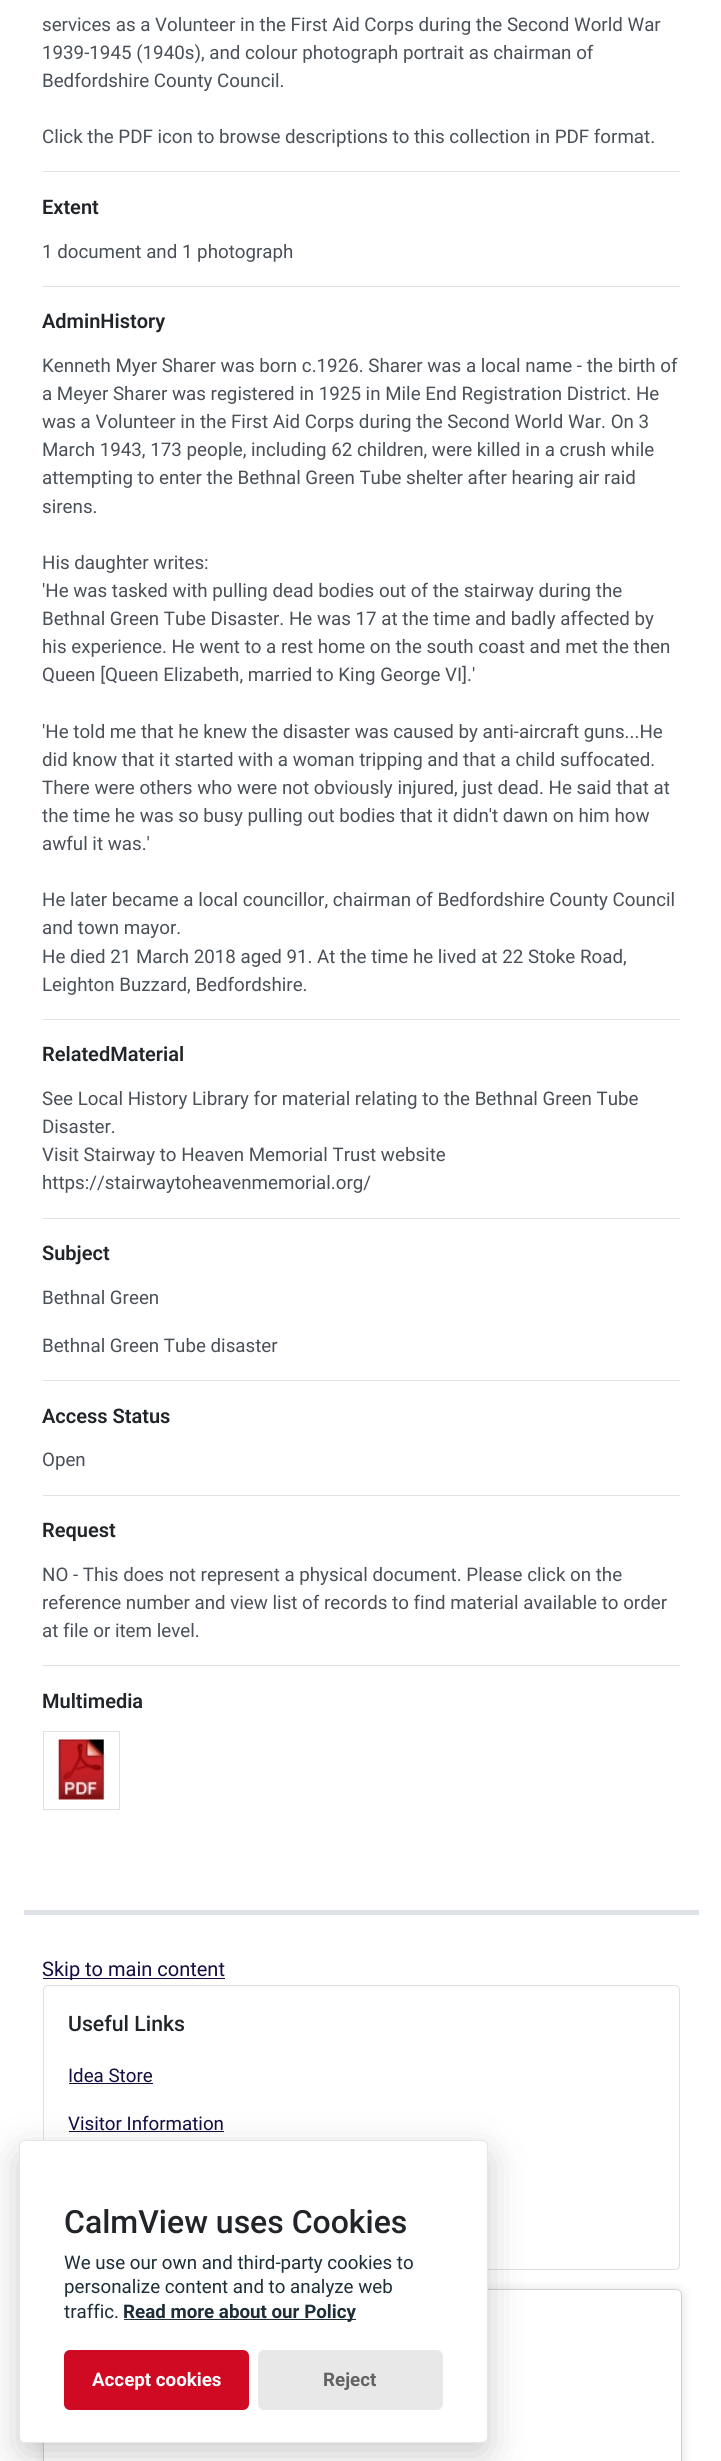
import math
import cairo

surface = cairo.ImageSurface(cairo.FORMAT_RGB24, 721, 2461)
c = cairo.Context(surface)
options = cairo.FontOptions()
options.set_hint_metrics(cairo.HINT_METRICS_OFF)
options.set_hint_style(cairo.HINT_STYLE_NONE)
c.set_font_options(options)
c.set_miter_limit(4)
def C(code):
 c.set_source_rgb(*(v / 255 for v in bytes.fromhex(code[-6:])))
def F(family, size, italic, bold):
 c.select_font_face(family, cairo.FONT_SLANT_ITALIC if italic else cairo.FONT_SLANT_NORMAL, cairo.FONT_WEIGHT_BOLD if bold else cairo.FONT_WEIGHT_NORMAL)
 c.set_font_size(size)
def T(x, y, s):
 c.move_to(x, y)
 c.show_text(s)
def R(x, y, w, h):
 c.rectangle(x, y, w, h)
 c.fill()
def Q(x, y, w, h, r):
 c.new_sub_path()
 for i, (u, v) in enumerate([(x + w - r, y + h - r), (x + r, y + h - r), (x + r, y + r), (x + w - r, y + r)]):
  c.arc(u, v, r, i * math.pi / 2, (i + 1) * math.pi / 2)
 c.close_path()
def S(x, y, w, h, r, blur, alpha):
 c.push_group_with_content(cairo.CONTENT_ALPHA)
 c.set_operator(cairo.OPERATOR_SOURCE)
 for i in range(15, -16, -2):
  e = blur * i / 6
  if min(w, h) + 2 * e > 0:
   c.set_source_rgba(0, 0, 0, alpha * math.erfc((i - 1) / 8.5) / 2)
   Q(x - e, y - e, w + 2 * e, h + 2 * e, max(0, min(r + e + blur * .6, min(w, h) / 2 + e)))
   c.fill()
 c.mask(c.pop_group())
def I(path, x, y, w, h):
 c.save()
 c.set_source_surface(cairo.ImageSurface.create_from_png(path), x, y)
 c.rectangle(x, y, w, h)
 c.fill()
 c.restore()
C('ffffff')
c.paint()
F('Roboto',18.75,0,0)
C('495057')
T(42,31,'services as a Volunteer in the First Aid Corps during the Second World War')
T(42,59,'1939-1945 (1940s), and colour photograph portrait as chairman of')
T(42,87,'Bedfordshire County Council.')
T(42,143,'Click the PDF icon to browse descriptions to this collection in PDF format.')
C('dee2e6')
R(43,171,637,1)
F('Roboto SemiBold',20,0,0)
C('212529')
T(42,214,'Extent')
F('Roboto',18.75,0,0)
C('495057')
T(42,258,'1 document and 1 photograph')
C('dee2e6')
R(43,286,637,1)
F('Roboto SemiBold',20,0,0)
C('212529')
T(42,328,'AdminHistory')
F('Roboto',18.75,0,0)
C('495057')
T(42,372,'Kenneth Myer Sharer was born c.1926. Sharer was a local name - the birth of')
T(42,400,'a Meyer Sharer was registered in 1925 in Mile End Registration District. He')
T(42,428,'was a Volunteer in the First Aid Corps during the Second World War. On 3')
T(42,456,'March 1943, 173 people, including 62 children, were killed in a crush while')
T(42,484,'attempting to enter the Bethnal Green Tube shelter after hearing air raid')
T(42,513,'sirens.')
T(42,569,'His daughter writes:')
T(42,597,'\'He was tasked with pulling dead bodies out of the stairway during the')
T(42,625,'Bethnal Green Tube Disaster. He was 17 at the time and badly affected by')
T(42,653,'his experience. He went to a rest home on the south coast and met the then')
T(42,681,'Queen [Queen Elizabeth, married to King George VI].\'')
T(42,738,'\'He told me that he knew the disaster was caused by anti-aircraft guns...He')
T(42,766,'did know that it started with a woman tripping and that a child suffocated.')
T(42,794,'There were others who were not obviously injured, just dead. He said that at')
T(42,822,'the time he was so busy pulling out bodies that it didn\'t dawn on him how')
T(42,850,'awful it was.\'')
T(42,906,'He later became a local councillor, chairman of Bedfordshire County Council')
T(42,934,'and town mayor.')
T(42,963,'He died 21 March 2018 aged 91. At the time he lived at 22 Stoke Road,')
T(42,991,'Leighton Buzzard, Bedfordshire.')
C('dee2e6')
R(43,1019,637,1)
F('Roboto SemiBold',20,0,0)
C('212529')
T(42,1061,'RelatedMaterial')
F('Roboto',18.75,0,0)
C('495057')
T(42,1105,'See Local History Library for material relating to the Bethnal Green Tube')
T(42,1133,'Disaster.')
T(42,1161,'Visit Stairway to Heaven Memorial Trust website')
T(42,1189,'https://stairwaytoheavenmemorial.org/')
C('dee2e6')
R(43,1218,637,1)
F('Roboto SemiBold',20,0,0)
C('212529')
T(42,1260,'Subject')
F('Roboto',18.75,0,0)
C('495057')
T(42,1304,'Bethnal Green')
T(42,1352,'Bethnal Green Tube disaster')
C('dee2e6')
R(43,1380,637,1)
F('Roboto SemiBold',20,0,0)
C('212529')
T(42,1423,'Access Status')
F('Roboto',18.75,0,0)
C('495057')
T(42,1466,'Open')
C('dee2e6')
R(43,1495,637,1)
F('Roboto SemiBold',20,0,0)
C('212529')
T(42,1537,'Request')
F('Roboto',18.75,0,0)
C('495057')
T(42,1581,'NO - This does not represent a physical document. Please click on the')
T(42,1609,'reference number and view list of records to find material available to order')
T(42,1637,'at file or item level.')
C('dee2e6')
R(43,1665,637,1)
F('Roboto SemiBold',20,0,0)
C('212529')
T(42,1708,'Multimedia')
c.rectangle(43.5,1731.5,76,78)
C('dee2e6')
c.set_line_width(1)
c.stroke()
I('1.png',57,1739,48,61)
R(24,1910,675,5)
C('160c42')
R(43,1978,182,1)
F('Roboto',20,0,0)
T(42,1976,'Skip to main content')
Q(43.5,1985.5,636,284,4.5)
C('dfdfdf')
c.stroke()
F('Roboto Medium',21.25,0,0)
C('212529')
T(68,2031,'Useful Links')
F('Roboto',18.75,0,0)
C('160c42')
T(68,2082,'Idea Store')
R(69,2083,84,1)
T(68,2130,'Visitor Information')
R(69,2131,155,1)
C('000000')
S(44,2291,637,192,4,6,.15)
S(44,2290,637,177,4,.5,.5)
C('ffffff')
Q(44,2290,637,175,4)
c.fill()
C('020203')
S(19,2153,469,302,6,19,.2)
C('ffffff')
Q(19.5,2140.5,468,302,5.5)
c.fill_preserve()
C('e6e6e6')
c.stroke()
F('Roboto Medium',32,0,0)
C('212529')
T(64,2233,'CalmView uses Cookies')
F('Roboto',18.75,0,0)
C('1d2e38')
T(64,2269,'We use our own and third-party cookies to')
T(64,2293,'personalize content and to analyze web')
T(64,2318,'traffic.')
R(124,2319,232,1)
F('Roboto',18.75,0,1)
T(123,2318,'Read more about our Policy')
C('d10a24')
Q(64,2350,185,60,6)
c.fill()
C('ffffff')
T(92,2386,'Accept cookies')
C('e8e8e8')
Q(258,2350,185,60,6)
c.fill()
C('636363')
T(323,2386,'Reject')
surface.write_to_png('o.png')
